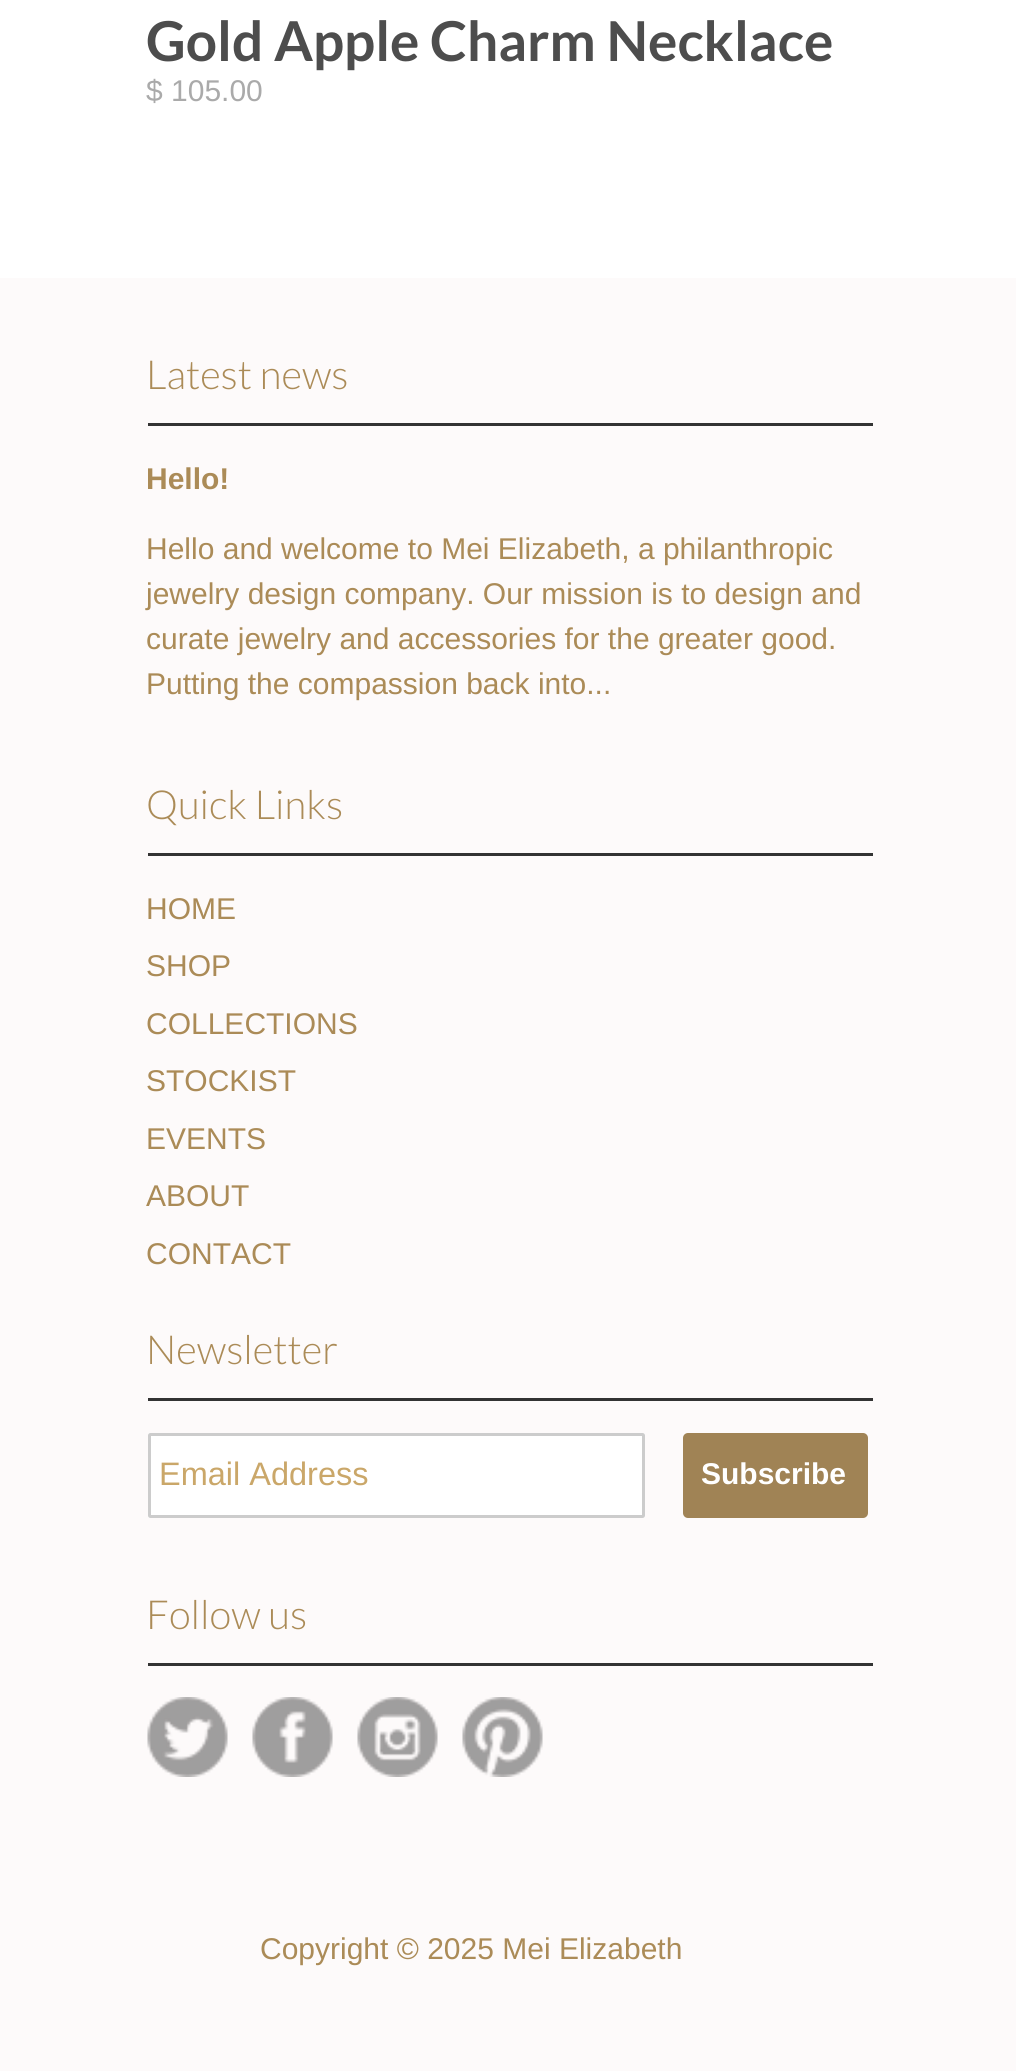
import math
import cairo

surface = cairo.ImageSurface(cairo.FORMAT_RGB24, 1016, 2071)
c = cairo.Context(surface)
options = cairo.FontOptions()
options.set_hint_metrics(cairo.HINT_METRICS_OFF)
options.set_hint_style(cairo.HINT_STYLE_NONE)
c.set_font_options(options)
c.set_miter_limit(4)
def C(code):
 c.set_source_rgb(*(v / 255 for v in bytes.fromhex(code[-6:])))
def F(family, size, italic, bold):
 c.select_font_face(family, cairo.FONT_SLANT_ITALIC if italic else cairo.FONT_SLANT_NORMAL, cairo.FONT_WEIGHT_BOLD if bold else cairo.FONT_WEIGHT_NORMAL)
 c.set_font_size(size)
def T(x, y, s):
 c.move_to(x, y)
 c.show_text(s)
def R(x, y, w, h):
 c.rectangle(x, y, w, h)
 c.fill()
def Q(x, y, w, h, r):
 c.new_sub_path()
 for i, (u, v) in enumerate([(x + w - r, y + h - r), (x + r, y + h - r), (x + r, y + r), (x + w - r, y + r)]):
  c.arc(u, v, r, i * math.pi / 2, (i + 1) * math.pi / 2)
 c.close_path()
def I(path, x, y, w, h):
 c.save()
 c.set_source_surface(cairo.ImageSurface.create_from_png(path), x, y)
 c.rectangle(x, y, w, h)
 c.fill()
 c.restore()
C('ffffff')
c.paint()
F('Lato',55,0,1)
C('4d4d4d')
T(146,61,'Gold Apple Charm Necklace')
F('Liberation Sans',30,0,0)
C('aaaaaa')
T(146,101,'$ 105.00')
C('fdfafa')
R(0,278,1016,1793)
C('333333')
R(148,423,725,3)
F('Lato Light',40,0,0)
C('ab8b57')
T(146,389,'Latest news')
F('Liberation Sans',30,0,1)
T(146,489,'Hello!')
F('Liberation Sans',30,0,0)
T(146,559,'Hello and welcome to Mei Elizabeth, a philanthropic')
T(146,604,'jewelry design company. Our mission is to design and')
T(146,649,'curate jewelry and accessories for the greater good.')
T(146,694,'Putting the compassion back into...')
C('333333')
R(148,853,725,3)
F('Lato Light',40,0,0)
C('ab8b57')
T(146,819,'Quick Links')
F('Liberation Sans',30,0,0)
T(146,919,'HOME')
T(146,976,'SHOP')
T(146,1034,'COLLECTIONS')
T(146,1091,'STOCKIST')
T(146,1149,'EVENTS')
T(146,1206,'ABOUT')
T(146,1264,'CONTACT')
C('333333')
R(148,1398,725,3)
F('Lato Light',40,0,0)
C('ab8b57')
T(146,1364,'Newsletter')
C('ffffff')
Q(149.5,1434.5,494,82,1)
c.fill_preserve()
C('cccccc')
c.set_line_width(3)
c.stroke()
F('Liberation Sans',32.5,0,0)
C('caa769')
T(159,1485,'Email Address')
C('a08355')
Q(683,1433,185,85,5)
c.fill()
F('Liberation Sans',30,0,1)
C('ffffff')
T(701,1484,'Subscribe')
C('333333')
R(148,1663,725,3)
F('Lato Light',40,0,0)
C('ab8b57')
T(146,1629,'Follow us')
I('1.png',147,1697,81,80)
I('2.png',252,1697,81,80)
I('3.png',357,1697,81,80)
I('4.png',462,1697,81,80)
F('Liberation Sans',30,0,0)
T(260,1959,'Copyright © 2025 Mei Elizabeth')
surface.write_to_png('o.png')
